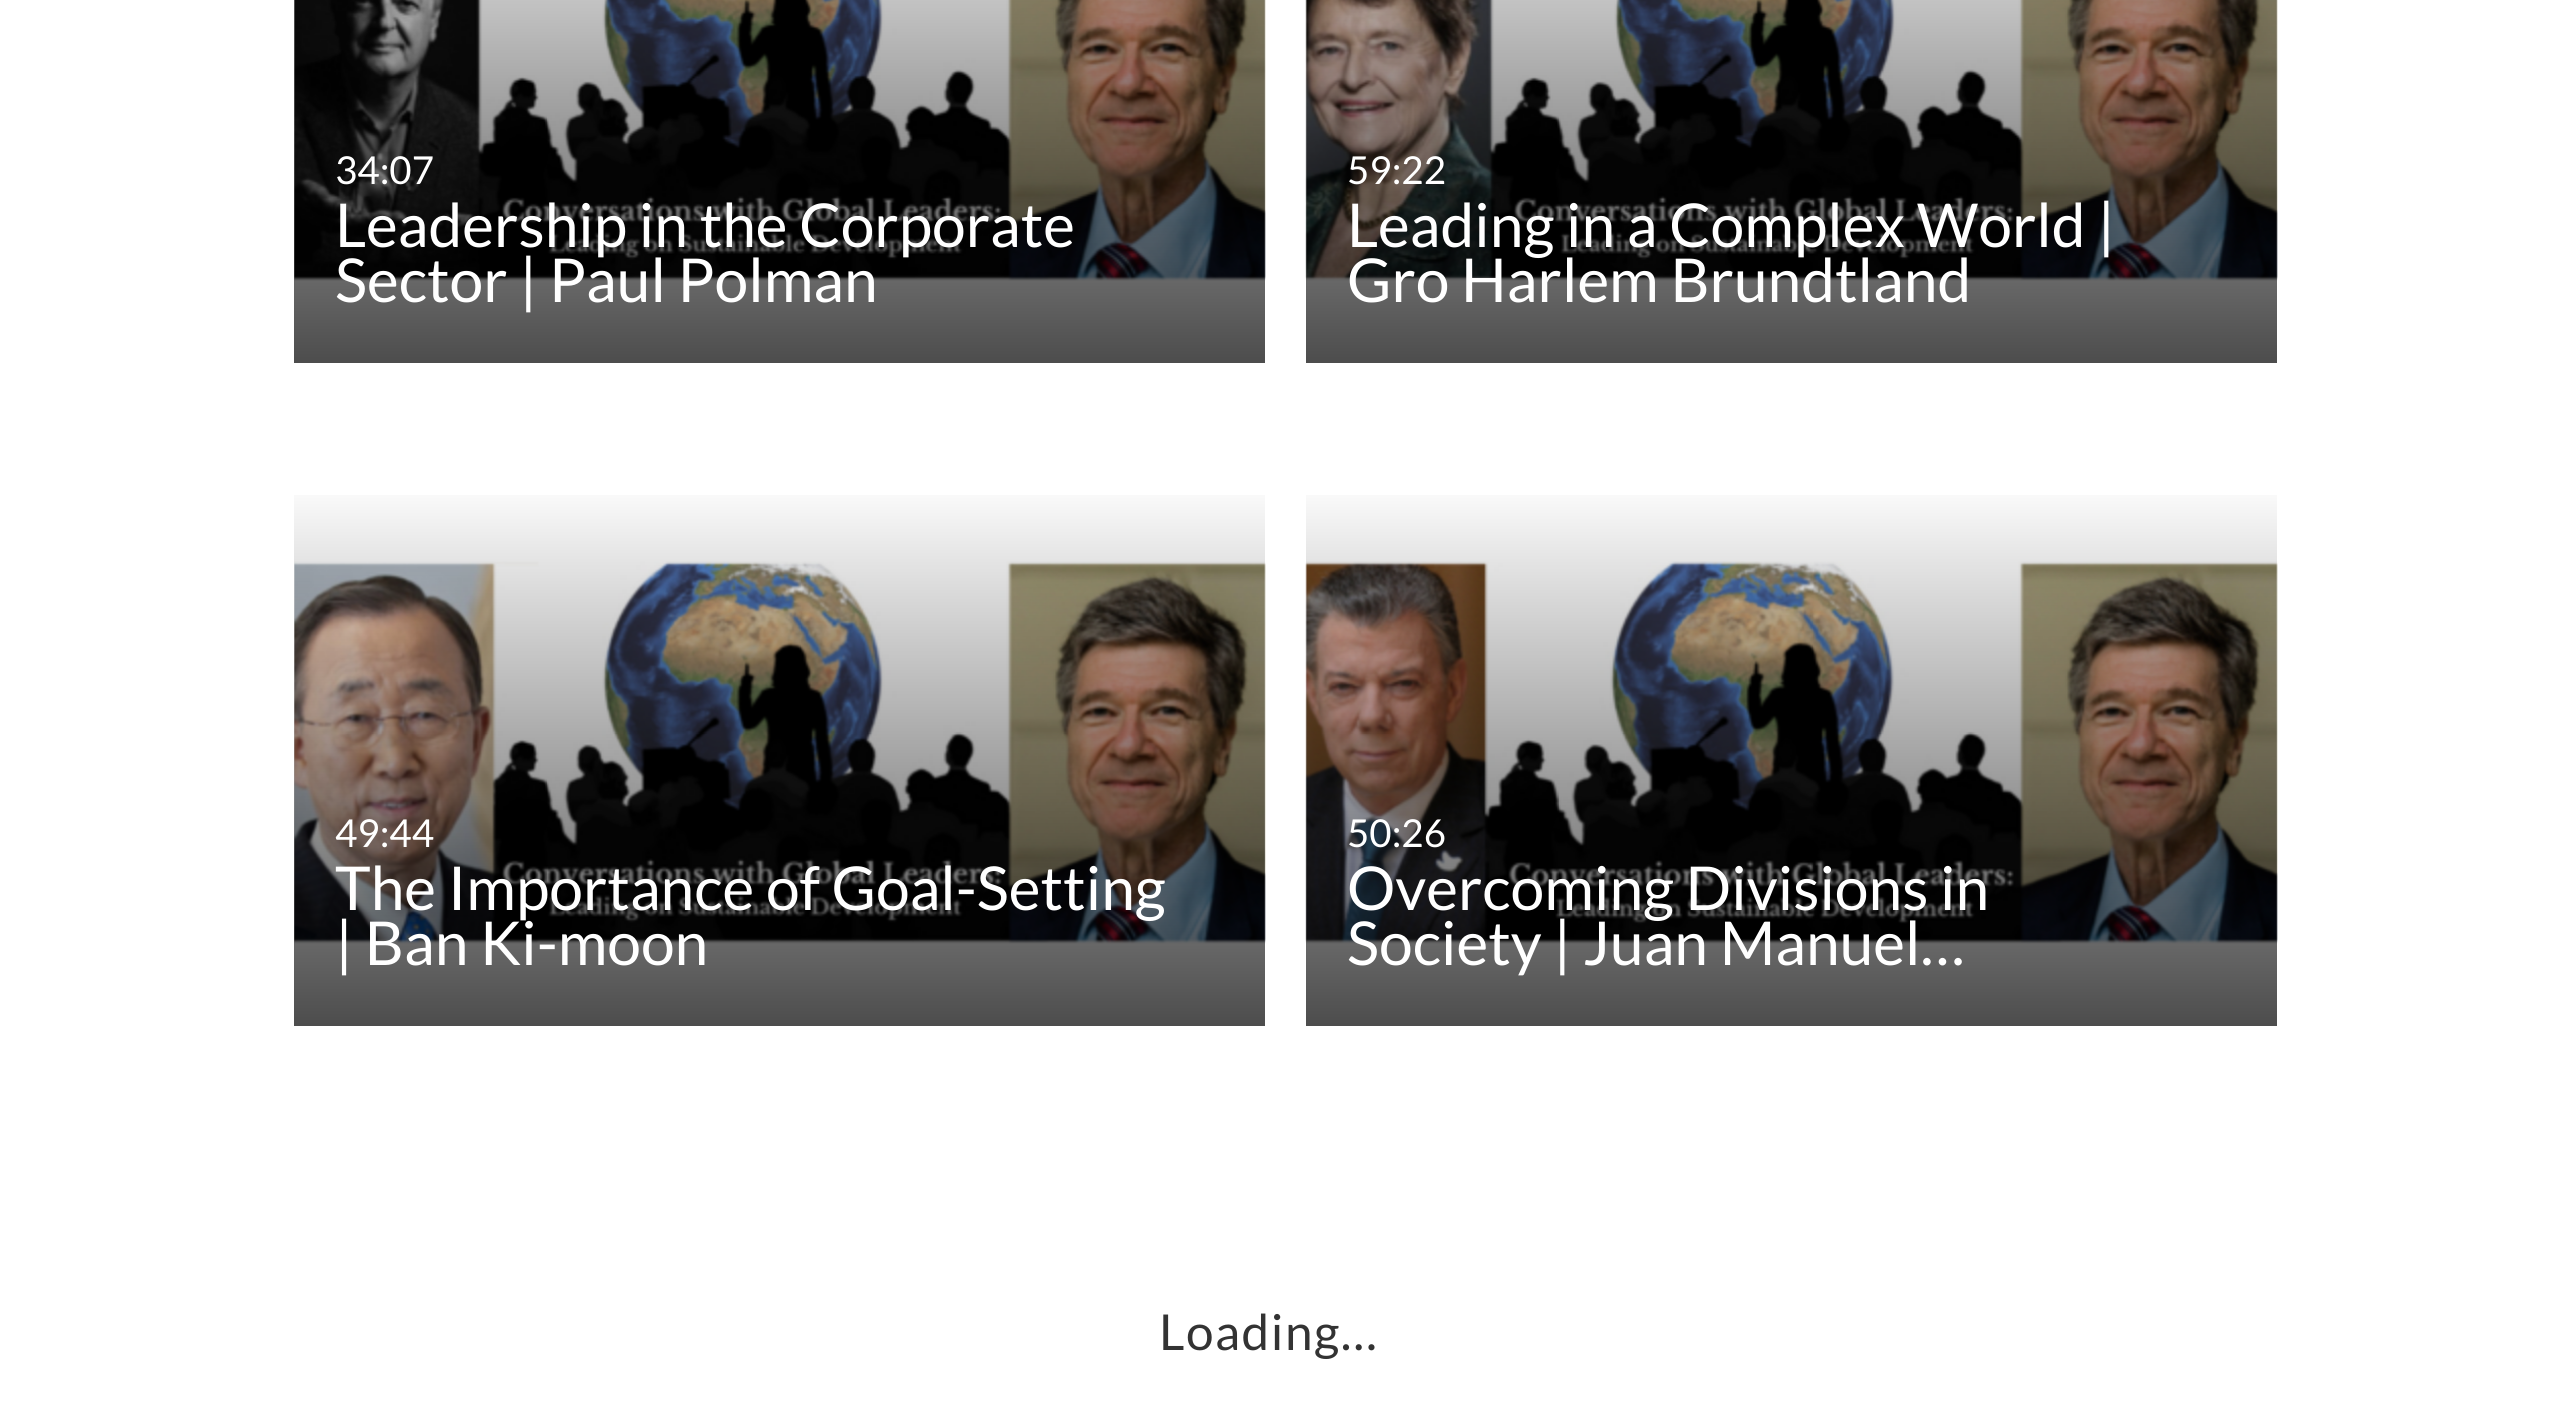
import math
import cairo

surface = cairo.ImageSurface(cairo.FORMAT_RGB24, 2575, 1421)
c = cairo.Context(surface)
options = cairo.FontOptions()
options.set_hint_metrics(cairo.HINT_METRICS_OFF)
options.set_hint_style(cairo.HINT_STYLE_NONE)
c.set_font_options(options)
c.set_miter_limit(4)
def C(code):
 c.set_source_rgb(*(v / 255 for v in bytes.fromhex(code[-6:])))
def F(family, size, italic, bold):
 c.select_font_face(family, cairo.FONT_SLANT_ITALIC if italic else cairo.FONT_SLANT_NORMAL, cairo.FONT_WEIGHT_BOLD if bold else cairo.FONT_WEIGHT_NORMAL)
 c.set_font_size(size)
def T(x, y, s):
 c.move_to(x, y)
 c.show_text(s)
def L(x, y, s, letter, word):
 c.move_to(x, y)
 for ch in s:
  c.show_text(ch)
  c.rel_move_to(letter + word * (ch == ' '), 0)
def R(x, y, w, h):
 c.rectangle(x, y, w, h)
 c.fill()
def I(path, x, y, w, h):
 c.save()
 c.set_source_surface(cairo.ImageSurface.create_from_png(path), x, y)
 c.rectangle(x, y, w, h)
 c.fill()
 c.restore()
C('ffffff')
c.paint()
I('1.png',294,0,972,281)
gradient = cairo.LinearGradient(780,-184,780,363)
gradient.add_color_stop_rgba(0,0,0,0,0)
gradient.add_color_stop_rgba(1,0,0,0,.7)
c.set_source(gradient)
R(294,0,971,363)
F('Lato',38.5,0,0)
C('ffffff')
T(335,184,'34:07')
F('Lato',60.5,0,0)
T(335,247,'Leadership in the Corporate')
T(335,302,'Sector | Paul Polman')
I('2.png',1305,0,973,281)
gradient = cairo.LinearGradient(1792,-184,1792,363)
gradient.add_color_stop_rgba(0,0,0,0,0)
gradient.add_color_stop_rgba(1,0,0,0,.7)
c.set_source(gradient)
R(1306,0,971,363)
F('Lato',38.5,0,0)
C('ffffff')
T(1347,184,'59:22')
F('Lato',60.5,0,0)
T(1347,247,'Leading in a Complex World |')
T(1347,302,'Gro Harlem Brundtland')
I('3.png',294,561,972,383)
gradient = cairo.LinearGradient(780,478,780,1026)
gradient.add_color_stop_rgba(0,0,0,0,0)
gradient.add_color_stop_rgba(1,0,0,0,.7)
c.set_source(gradient)
R(294,495,971,531)
F('Lato',38.5,0,0)
C('ffffff')
T(335,847,'49:44')
F('Lato',60.5,0,0)
T(335,910,'The Importance of Goal-Setting')
T(335,965,'| Ban Ki-moon')
I('4.png',1305,561,973,383)
gradient = cairo.LinearGradient(1792,478,1792,1026)
gradient.add_color_stop_rgba(0,0,0,0,0)
gradient.add_color_stop_rgba(1,0,0,0,.7)
c.set_source(gradient)
R(1306,495,971,531)
F('Lato',38.5,0,0)
C('ffffff')
T(1347,847,'50:26')
F('Lato',60.5,0,0)
T(1347,910,'Overcoming Divisions in')
T(1347,965,'Society | Juan Manuel…')
F('Lato',49.5,0,0)
C('333333')
L(1159,1350,'Loading…',1.5,0)
surface.write_to_png('o.png')
